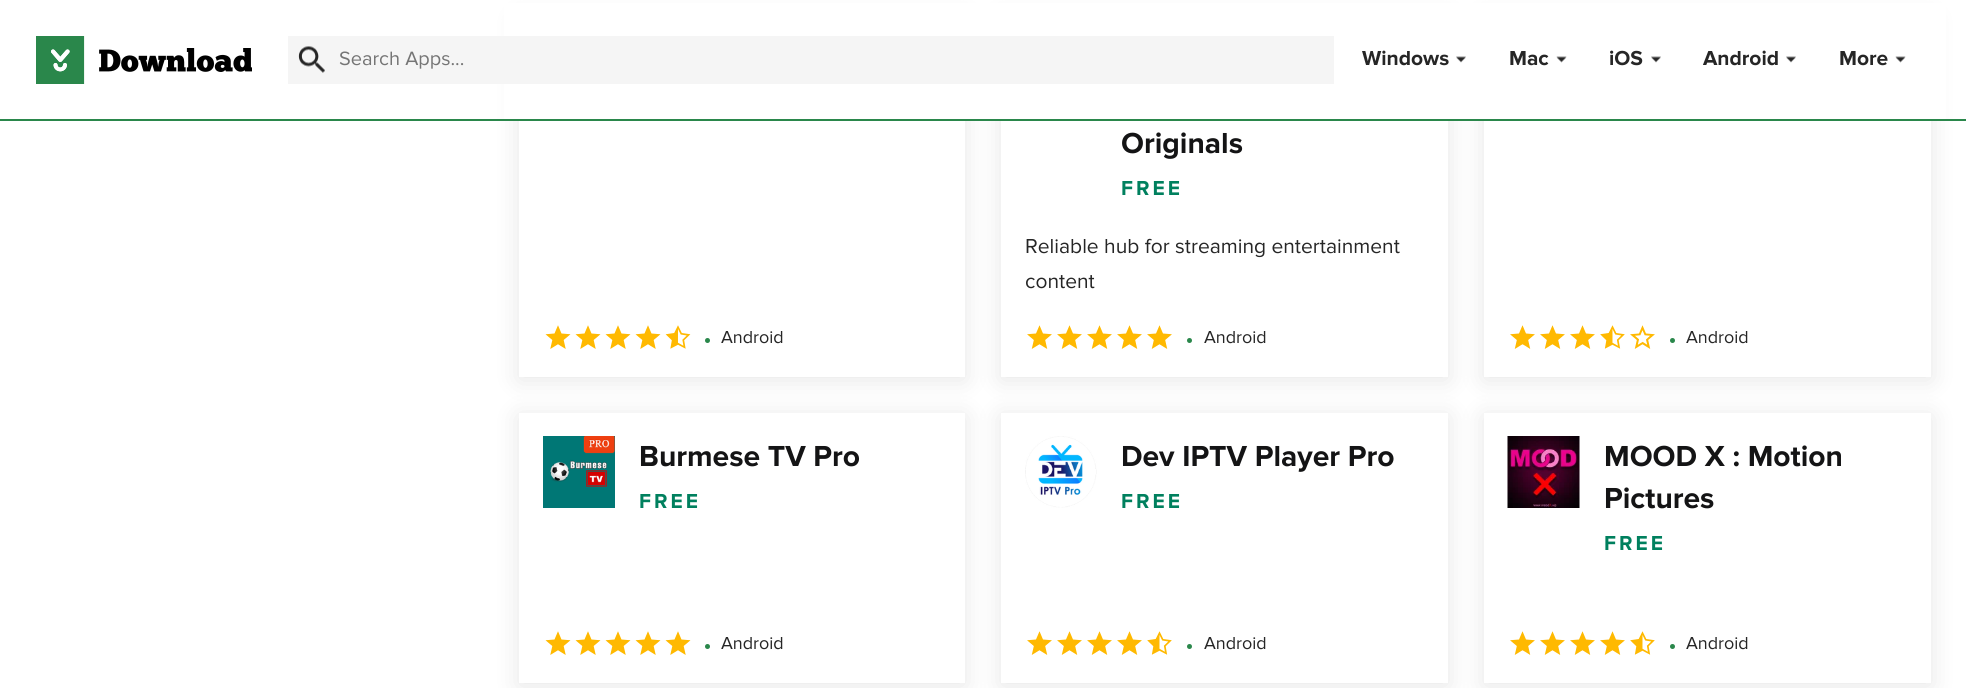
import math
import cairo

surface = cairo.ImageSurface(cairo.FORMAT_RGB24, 1966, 688)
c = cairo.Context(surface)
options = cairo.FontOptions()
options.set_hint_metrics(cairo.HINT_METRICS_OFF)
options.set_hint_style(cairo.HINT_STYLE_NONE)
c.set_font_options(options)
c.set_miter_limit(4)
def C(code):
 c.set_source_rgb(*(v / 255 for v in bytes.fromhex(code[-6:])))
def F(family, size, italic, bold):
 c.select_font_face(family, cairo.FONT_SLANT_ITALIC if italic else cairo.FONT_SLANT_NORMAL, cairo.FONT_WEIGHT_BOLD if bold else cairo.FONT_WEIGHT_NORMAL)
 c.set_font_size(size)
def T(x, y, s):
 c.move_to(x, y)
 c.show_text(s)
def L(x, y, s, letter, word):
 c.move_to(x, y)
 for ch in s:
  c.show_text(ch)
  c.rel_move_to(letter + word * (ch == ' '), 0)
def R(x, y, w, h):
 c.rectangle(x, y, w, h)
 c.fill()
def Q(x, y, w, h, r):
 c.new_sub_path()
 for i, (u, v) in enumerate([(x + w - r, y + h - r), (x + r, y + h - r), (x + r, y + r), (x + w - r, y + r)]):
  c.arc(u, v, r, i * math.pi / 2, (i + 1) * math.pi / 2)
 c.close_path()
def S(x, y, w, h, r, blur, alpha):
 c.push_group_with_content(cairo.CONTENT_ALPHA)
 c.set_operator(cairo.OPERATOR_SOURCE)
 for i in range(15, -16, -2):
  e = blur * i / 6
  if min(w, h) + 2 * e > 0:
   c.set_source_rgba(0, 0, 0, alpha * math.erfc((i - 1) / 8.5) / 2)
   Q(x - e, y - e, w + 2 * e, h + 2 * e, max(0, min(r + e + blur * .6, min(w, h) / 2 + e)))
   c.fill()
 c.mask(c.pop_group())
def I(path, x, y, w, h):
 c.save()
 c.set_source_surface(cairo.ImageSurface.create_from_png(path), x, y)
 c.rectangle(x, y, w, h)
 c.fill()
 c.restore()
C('ffffff')
c.paint()
c.save()
c.set_fill_rule(cairo.FILL_RULE_EVEN_ODD)
c.new_path()
c.move_to(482,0)
c.line_to(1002,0)
c.line_to(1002,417)
c.line_to(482,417)
c.close_path()
c.move_to(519,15)
c.line_to(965,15)
c.line_to(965,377)
c.line_to(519,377)
c.close_path()
c.clip()
C('000000')
S(519,18,446,362,0,12,.1)
c.restore()
c.save()
c.set_fill_rule(cairo.FILL_RULE_EVEN_ODD)
c.new_path()
c.move_to(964,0)
c.line_to(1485,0)
c.line_to(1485,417)
c.line_to(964,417)
c.close_path()
c.move_to(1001,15)
c.line_to(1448,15)
c.line_to(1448,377)
c.line_to(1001,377)
c.close_path()
c.clip()
C('000000')
S(1001,18,447,362,0,12,.1)
c.restore()
c.save()
c.set_fill_rule(cairo.FILL_RULE_EVEN_ODD)
c.new_path()
c.move_to(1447,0)
c.line_to(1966,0)
c.line_to(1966,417)
c.line_to(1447,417)
c.close_path()
c.move_to(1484,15)
c.line_to(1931,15)
c.line_to(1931,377)
c.line_to(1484,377)
c.close_path()
c.clip()
C('000000')
S(1484,18,447,362,0,12,.1)
c.restore()
C('ffffff')
R(504,3,1442,116)
C('2a874b')
R(0,119,1966,2)
I('1.png',36,36,216,48)
C('f5f5f5')
R(288,36,1046,48)
I('2.png',298,46,27,27)
F('Proxima Nova',20,0,0)
C('757575')
T(339,65,'Search Apps...')
F('Proxima Nova',21,0,1)
C('262626')
T(1362,65,'Windows')
I('3.png',1456,56,10,7)
T(1509,65,'Mac')
I('4.png',1556,56,11,7)
T(1609,65,'iOS')
I('3.png',1651,56,10,7)
T(1703,65,'Android')
I('3.png',1786,56,10,7)
T(1839,65,'More')
I('4.png',1895,56,11,7)
I('5.png',545,325,146,24)
C('2a874b')
c.arc(707.5,340.5,2.5,0,2 * math.pi)
c.fill()
F('Proxima Nova',18,0,0)
C('262626')
T(721,343,'Android')
F('Proxima Nova',30,0,1)
C('141415')
T(1121,153,'Originals')
F('Proxima Nova',21,0,1)
C('00805e')
L(1121,195,'FREE',3,0)
F('Proxima Nova',21,0,0)
C('262626')
T(1025,253,'Reliable hub for streaming entertainment')
T(1025,288,'content')
I('6.png',1027,325,145,24)
C('2a874b')
c.arc(1189.5,340.5,2.5,0,2 * math.pi)
c.fill()
F('Proxima Nova',18,0,0)
C('262626')
T(1204,343,'Android')
I('7.png',1510,325,145,24)
C('2a874b')
c.arc(1672.5,340.5,2.5,0,2 * math.pi)
c.fill()
C('262626')
T(1686,343,'Android')
c.save()
c.set_fill_rule(cairo.FILL_RULE_EVEN_ODD)
c.new_path()
c.move_to(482,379)
c.line_to(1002,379)
c.line_to(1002,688)
c.line_to(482,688)
c.close_path()
c.move_to(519,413)
c.line_to(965,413)
c.line_to(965,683)
c.line_to(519,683)
c.close_path()
c.clip()
C('000000')
S(519,416,446,270,0,12,.1)
c.restore()
I('8.png',543,436,72,72)
F('Proxima Nova',30,0,1)
C('141415')
T(639,466,'Burmese TV Pro')
F('Proxima Nova',21,0,1)
C('00805e')
L(639,508,'FREE',3,0)
I('9.png',545,631,146,24)
C('2a874b')
c.arc(707.5,646.5,2.5,0,2 * math.pi)
c.fill()
F('Proxima Nova',18,0,0)
C('262626')
T(721,649,'Android')
c.save()
c.set_fill_rule(cairo.FILL_RULE_EVEN_ODD)
c.new_path()
c.move_to(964,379)
c.line_to(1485,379)
c.line_to(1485,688)
c.line_to(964,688)
c.close_path()
c.move_to(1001,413)
c.line_to(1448,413)
c.line_to(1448,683)
c.line_to(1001,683)
c.close_path()
c.clip()
C('000000')
S(1001,416,447,270,0,12,.1)
c.restore()
I('10.png',1025,436,72,72)
F('Proxima Nova',30,0,1)
C('141415')
T(1121,466,'Dev IPTV Player Pro')
F('Proxima Nova',21,0,1)
C('00805e')
L(1121,508,'FREE',3,0)
I('11.png',1027,631,145,24)
C('2a874b')
c.arc(1189.5,646.5,2.5,0,2 * math.pi)
c.fill()
F('Proxima Nova',18,0,0)
C('262626')
T(1204,649,'Android')
c.save()
c.set_fill_rule(cairo.FILL_RULE_EVEN_ODD)
c.new_path()
c.move_to(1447,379)
c.line_to(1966,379)
c.line_to(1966,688)
c.line_to(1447,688)
c.close_path()
c.move_to(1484,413)
c.line_to(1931,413)
c.line_to(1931,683)
c.line_to(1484,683)
c.close_path()
c.clip()
C('000000')
S(1484,416,447,270,0,12,.1)
c.restore()
I('12.png',1507,436,73,72)
F('Proxima Nova',30,0,1)
C('141415')
T(1604,466,'MOOD X : Motion')
T(1604,508,'Pictures')
F('Proxima Nova',21,0,1)
C('00805e')
L(1604,550,'FREE',3,0)
I('13.png',1510,631,145,24)
C('2a874b')
c.arc(1672.5,646.5,2.5,0,2 * math.pi)
c.fill()
F('Proxima Nova',18,0,0)
C('262626')
T(1686,649,'Android')
surface.write_to_png('o.png')
